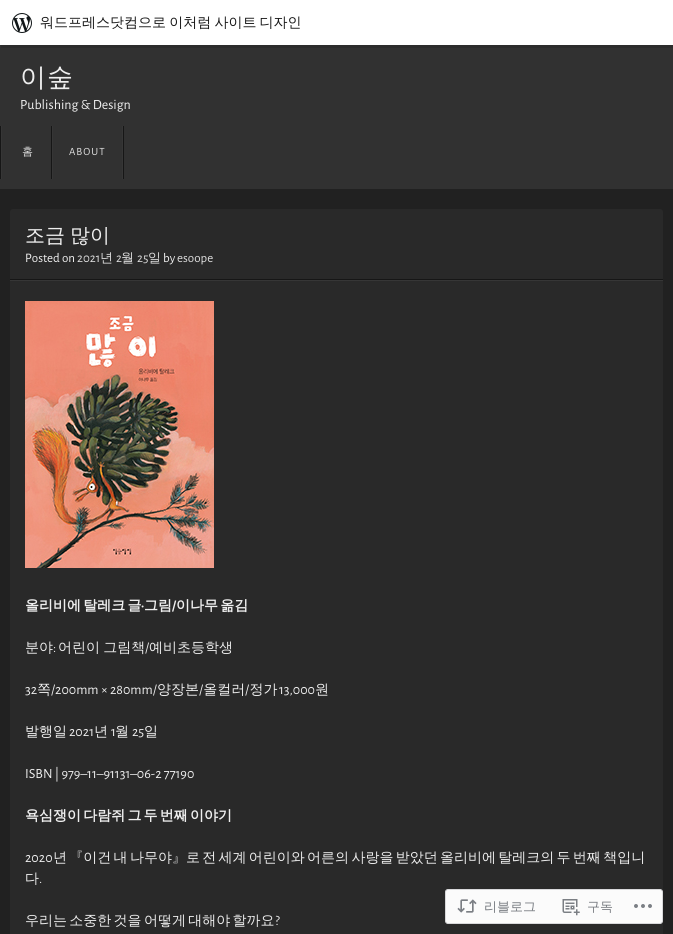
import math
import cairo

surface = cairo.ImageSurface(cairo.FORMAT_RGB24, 673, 934)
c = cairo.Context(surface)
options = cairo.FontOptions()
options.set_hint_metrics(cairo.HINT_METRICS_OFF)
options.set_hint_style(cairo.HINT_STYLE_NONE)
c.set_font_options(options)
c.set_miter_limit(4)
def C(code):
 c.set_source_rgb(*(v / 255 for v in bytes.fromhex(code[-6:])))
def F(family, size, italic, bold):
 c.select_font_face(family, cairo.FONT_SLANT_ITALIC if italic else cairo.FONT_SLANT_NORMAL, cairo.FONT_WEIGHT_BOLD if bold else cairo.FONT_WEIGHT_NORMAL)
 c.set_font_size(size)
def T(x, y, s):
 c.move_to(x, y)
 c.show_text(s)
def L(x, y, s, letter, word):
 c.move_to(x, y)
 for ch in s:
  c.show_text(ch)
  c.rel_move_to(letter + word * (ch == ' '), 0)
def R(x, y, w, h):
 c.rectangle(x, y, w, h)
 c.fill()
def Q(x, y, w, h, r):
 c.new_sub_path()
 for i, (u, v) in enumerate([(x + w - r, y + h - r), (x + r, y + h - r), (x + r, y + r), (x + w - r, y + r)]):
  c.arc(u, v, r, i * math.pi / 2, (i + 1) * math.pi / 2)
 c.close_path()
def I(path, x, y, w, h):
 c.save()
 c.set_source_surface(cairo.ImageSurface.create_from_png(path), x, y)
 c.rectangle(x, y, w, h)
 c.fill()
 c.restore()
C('212121')
c.paint()
C('313131')
R(0,45,673,144)
C('2c2c2c')
c.new_path()
c.move_to(1,45)
c.line_to(1,48)
c.line_to(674,48)
c.line_to(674,3)
c.line_to(673,3)
c.line_to(673,45)
c.close_path()
c.fill()
C('ffffff')
R(0,0,673,45)
I('1.png',12,13,20,20)
F('WenQuanYi Zen Hei Medium',14,0,0)
C('171717')
L(40,27,'워드프레스닷컴으로 이처럼 사이트 디자인',0,-1)
F('WenQuanYi Zen Hei Medium',26,0,0)
C('eeeeee')
L(20,86,'이숲',1,0)
F('Alegreya Sans',14,0,0)
T(20,109,'Publishing & Design')
C('161616')
R(0,126,1,53)
C('363636')
R(1,126,1,53)
F('WenQuanYi Zen Hei Medium',11,0,0)
C('dddddd')
L(22,155,'홈',1,0)
C('161616')
R(123,126,1,53)
R(51,126,1,53)
C('363636')
R(122,126,1,53)
R(52,126,1,53)
F('Alegreya Sans',11,0,0)
C('dddddd')
L(69,155,'ABOUT',1,0)
C('292929')
Q(10,209,653,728,3)
c.fill()
C('161616')
R(10,279,653,1)
F('WenQuanYi Zen Hei Medium',20,0,0)
C('eeeeee')
L(25,242,'조금 많이',0,-1)
F('Alegreya Sans',13,0,0)
T(25,262,'Posted on')
C('dddddd')
T(77,262,'2021')
F('WenQuanYi Zen Hei Medium',13,0,0)
T(100,262,'년')
F('Alegreya Sans',13,0,0)
T(116,262,'2')
F('WenQuanYi Zen Hei Medium',13,0,0)
T(121,262,'월')
F('Alegreya Sans',13,0,0)
T(137,262,'25')
F('WenQuanYi Zen Hei Medium',13,0,0)
T(148,262,'일')
F('Alegreya Sans',13,0,0)
C('eeeeee')
T(163,262,'by')
C('dddddd')
T(177,262,'esoope')
C('363636')
R(10,280,653,1)
I('2.png',25,301,189,267)
F('WenQuanYi Zen Hei',14,0,1)
C('eeeeee')
L(25,610,'올리비에 탈레크 글',0,-2)
F('Alegreya Sans',14,0,1)
T(141,610,'·')
F('WenQuanYi Zen Hei',14,0,1)
T(144,610,'그림')
F('Alegreya Sans',14,0,1)
T(172,610,'/')
F('WenQuanYi Zen Hei',14,0,1)
L(176,610,'이나무 옮김',0,-2)
F('WenQuanYi Zen Hei Medium',14,0,0)
T(25,652,'분야')
F('Alegreya Sans',14,0,0)
T(53,652,':')
F('WenQuanYi Zen Hei Medium',14,0,0)
L(58,652,'어린이 그림책',0,-1)
F('Alegreya Sans',14,0,0)
T(145,652,'/')
F('WenQuanYi Zen Hei Medium',14,0,0)
T(149,652,'예비초등학생')
T(37,694,'쪽')
F('Alegreya Sans',14,0,0)
T(51,694,'/200mm × 280mm/')
F('WenQuanYi Zen Hei Medium',14,0,0)
T(157,694,'양장본 올컬러 정가')
T(315,694,'원')
F('Alegreya Sans',14,0,0)
T(25,694,'32')
T(199,694,'/')
T(245,694,'/')
T(279,694,'13,000')
F('WenQuanYi Zen Hei Medium',14,0,0)
T(25,736,'발행일')
F('Alegreya Sans',14,0,0)
T(69,736,'2021')
F('WenQuanYi Zen Hei Medium',14,0,0)
T(94,736,'년')
F('Alegreya Sans',14,0,0)
T(111,736,'1')
F('WenQuanYi Zen Hei Medium',14,0,0)
T(115,736,'월')
F('Alegreya Sans',14,0,0)
T(132,736,'25')
F('WenQuanYi Zen Hei Medium',14,0,0)
T(144,736,'일')
F('Alegreya Sans',14,0,0)
T(25,778,'ISBN | 979–11–91131–06-2 77190')
F('WenQuanYi Zen Hei',14,0,1)
L(25,820,'욕심쟁이 다람쥐 그 두 번째 이야기',0,-2)
F('Alegreya Sans',14,0,0)
T(25,862,'2020')
F('WenQuanYi Zen Hei Medium',14,0,0)
L(53,862,'년 『이건 내 나무야』로 전 세계 어린이와 어른의 사랑을 받았던 올리비에 탈레크의 두 번째 책입니',0,-1.9)
T(25,883,'다')
F('Alegreya Sans',14,0,0)
T(39,883,'.')
F('WenQuanYi Zen Hei Medium',14,0,0)
L(25,925,'우리는 소중한 것을 어떻게 대해야 할까요',0,-1.9)
F('Alegreya Sans',14,0,0)
T(275,925,'?')
C('fbfbfb')
Q(445.5,889.5,217,34,2.5)
c.fill_preserve()
C('d8d8da')
c.set_line_width(1)
c.stroke()
I('3.png',457,899,20,14)
F('WenQuanYi Zen Hei Medium',13,0,0)
C('767a80')
T(484,911,'리블로그')
I('4.png',562,899,18,17)
T(587,911,'구독')
I('5.png',634,904,18,4)
surface.write_to_png('o.png')
